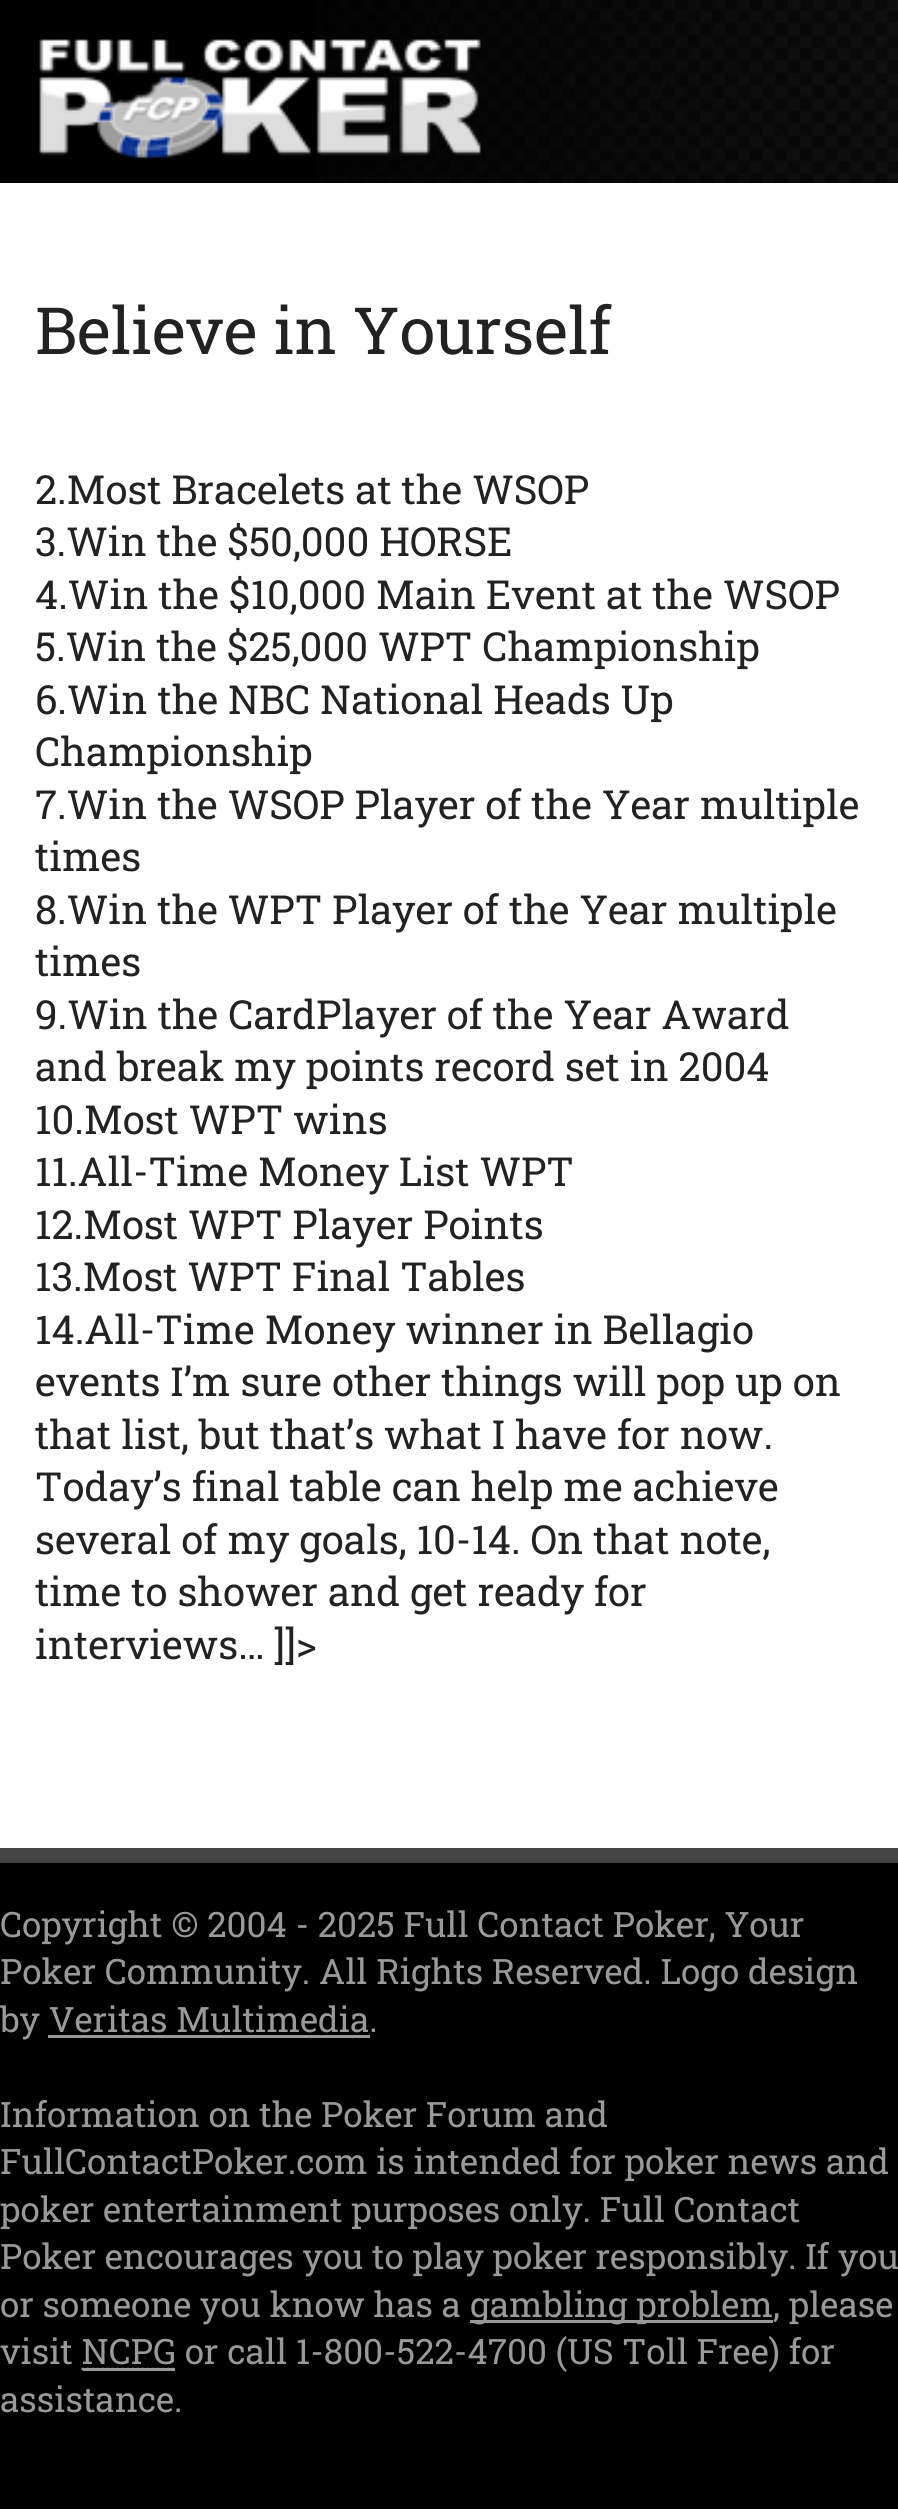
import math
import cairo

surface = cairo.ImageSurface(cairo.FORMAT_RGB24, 898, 2509)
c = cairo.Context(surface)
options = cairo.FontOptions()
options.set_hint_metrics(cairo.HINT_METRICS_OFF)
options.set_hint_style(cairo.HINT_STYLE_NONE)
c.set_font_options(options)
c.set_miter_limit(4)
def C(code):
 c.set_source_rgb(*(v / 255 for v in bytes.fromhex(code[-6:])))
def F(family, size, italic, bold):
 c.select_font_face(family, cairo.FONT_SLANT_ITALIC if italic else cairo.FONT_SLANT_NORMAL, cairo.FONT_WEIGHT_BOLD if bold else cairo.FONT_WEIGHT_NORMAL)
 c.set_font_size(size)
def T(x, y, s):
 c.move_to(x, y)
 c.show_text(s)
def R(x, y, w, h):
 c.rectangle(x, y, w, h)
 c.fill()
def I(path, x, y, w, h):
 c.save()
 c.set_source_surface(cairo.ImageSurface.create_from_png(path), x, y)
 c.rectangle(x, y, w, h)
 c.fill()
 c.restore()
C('000000')
c.paint()
I('1.png',316,0,582,183)
I('2.png',39,39,442,120)
C('ffffff')
R(0,183,898,1665)
F('Roboto Slab',65,0,0)
C('222222')
T(35,354,'Believe in Yourself')
F('Roboto Slab',40,0,0)
T(35,504,'2.Most Bracelets at the WSOP')
T(35,556,'3.Win the $50,000 HORSE')
T(35,609,'4.Win the $10,000 Main Event at the WSOP')
T(35,661,'5.Win the $25,000 WPT Championship')
T(35,714,'6.Win the NBC National Heads Up')
T(35,766,'Championship')
T(35,819,'7.Win the WSOP Player of the Year multiple')
T(35,871,'times')
T(35,924,'8.Win the WPT Player of the Year multiple')
T(35,976,'times')
T(35,1029,'9.Win the CardPlayer of the Year Award')
T(35,1081,'and break my points record set in 2004')
T(35,1134,'10.Most WPT wins')
T(35,1186,'11.All-Time Money List WPT')
T(35,1239,'12.Most WPT Player Points')
T(35,1291,'13.Most WPT Final Tables')
T(35,1344,'14.All-Time Money winner in Bellagio')
T(35,1396,'events I’m sure other things will pop up on')
T(35,1449,'that list, but that’s what I have for now.')
T(35,1501,'Today’s final table can help me achieve')
T(35,1554,'several of my goals, 10-14. On that note,')
T(35,1606,'time to shower and get ready for')
T(35,1659,'interviews… ]]>')
C('444444')
R(0,1848,898,15)
F('Roboto Slab',35,0,0)
C('999999')
T(0,1937,'Copyright © 2004 - 2025 Full Contact Poker, Your')
T(0,1984,'Poker Community. All Rights Reserved. Logo design')
T(0,2032,'by Veritas Multimedia.')
R(48,2035,322,3)
T(0,2127,'Information on the Poker Forum and')
T(0,2174,'FullContactPoker.com is intended for poker news and')
T(0,2222,'poker entertainment purposes only. Full Contact')
T(0,2269,'Poker encourages you to play poker responsibly. If you')
T(0,2317,'or someone you know has a')
R(470,2320,303,3)
T(470,2317,'gambling problem, please')
T(0,2364,'visit NCPG or call 1-800-522-4700 (US Toll Free) for')
R(83,2368,92,3)
c.new_path()
c.move_to(81.5,2369)
c.line_to(176,2369)
c.set_line_width(2.5)
c.set_dash([2.5,2.5])
c.stroke()
T(0,2412,'assistance.')
surface.write_to_png('o.png')
